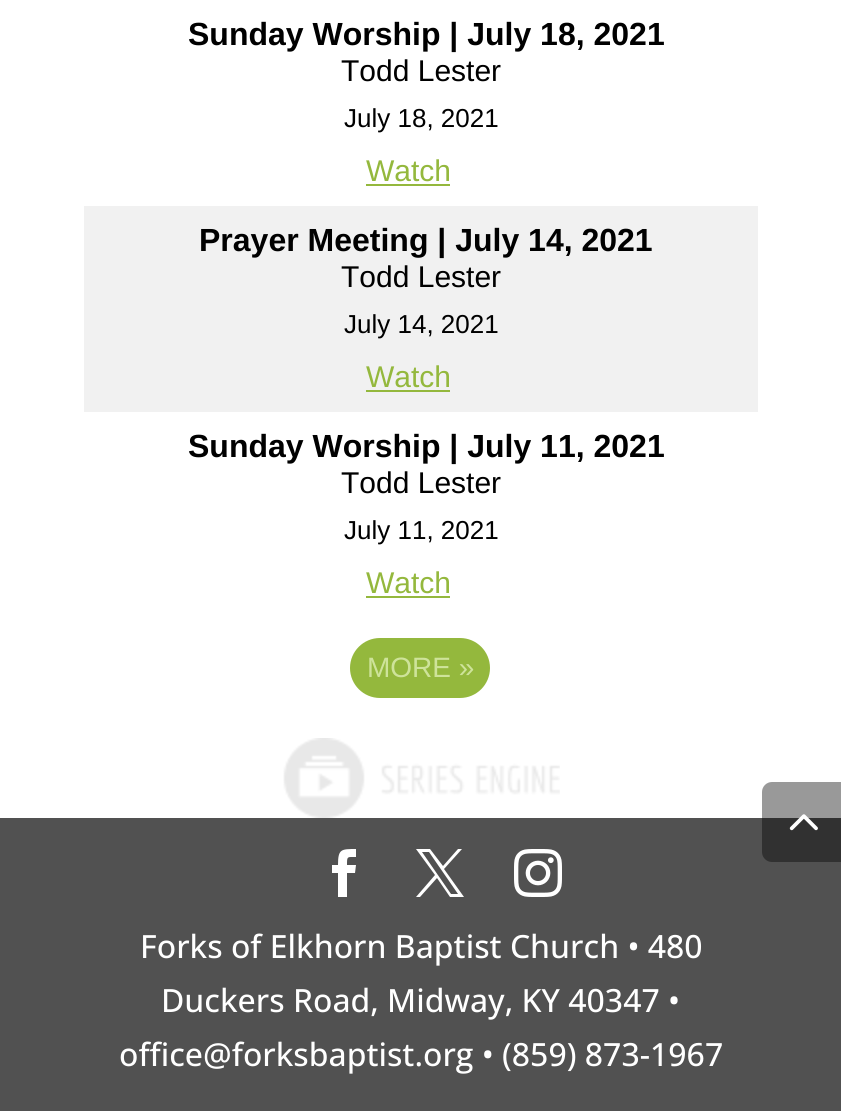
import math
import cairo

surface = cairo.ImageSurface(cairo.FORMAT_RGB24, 841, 1111)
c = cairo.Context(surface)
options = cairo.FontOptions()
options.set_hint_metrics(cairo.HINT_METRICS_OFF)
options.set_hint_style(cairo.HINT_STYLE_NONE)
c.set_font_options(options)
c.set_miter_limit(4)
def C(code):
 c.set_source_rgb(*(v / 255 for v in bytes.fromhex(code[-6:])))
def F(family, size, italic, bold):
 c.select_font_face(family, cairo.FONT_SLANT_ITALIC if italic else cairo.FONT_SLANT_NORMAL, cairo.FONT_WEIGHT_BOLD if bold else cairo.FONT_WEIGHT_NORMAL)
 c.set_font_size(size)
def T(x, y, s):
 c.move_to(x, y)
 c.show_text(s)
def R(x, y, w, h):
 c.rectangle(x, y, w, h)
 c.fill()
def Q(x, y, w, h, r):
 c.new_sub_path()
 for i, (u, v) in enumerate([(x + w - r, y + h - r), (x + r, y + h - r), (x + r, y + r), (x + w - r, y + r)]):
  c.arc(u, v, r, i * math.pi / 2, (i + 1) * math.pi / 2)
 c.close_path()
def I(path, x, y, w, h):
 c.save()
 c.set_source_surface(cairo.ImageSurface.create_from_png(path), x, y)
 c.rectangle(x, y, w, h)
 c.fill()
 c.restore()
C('ffffff')
c.paint()
F('Liberation Sans',32,0,1)
C('000000')
T(188,45,'Sunday Worship | July 18, 2021')
F('Liberation Sans',30,0,0)
T(341,81,'Todd Lester')
F('Liberation Sans',26,0,0)
T(344,127,'July 18, 2021')
F('Liberation Sans',30,0,0)
C('94b83d')
T(366,181,'Watch')
R(366,184,84,2)
C('f1f1f1')
R(84,206,674,206)
F('Liberation Sans',32,0,1)
C('000000')
T(199,251,'Prayer Meeting | July 14, 2021')
F('Liberation Sans',30,0,0)
T(341,287,'Todd Lester')
F('Liberation Sans',26,0,0)
T(344,333,'July 14, 2021')
F('Liberation Sans',30,0,0)
C('94b83d')
T(366,387,'Watch')
R(366,390,84,2)
F('Liberation Sans',32,0,1)
C('000000')
T(188,457,'Sunday Worship | July 11, 2021')
F('Liberation Sans',30,0,0)
T(341,493,'Todd Lester')
F('Liberation Sans',26,0,0)
T(344,539,'July 11, 2021')
F('Liberation Sans',30,0,0)
C('94b83d')
T(366,593,'Watch')
R(366,596,84,2)
Q(350,638,140,60,30)
c.fill()
F('Liberation Sans',28,0,0)
C('cee39a')
T(367,677,'MORE »')
I('1.png',283,738,277,80)
C('515151')
R(0,818,841,293)
c.set_source_rgba(0,0,0,0.4)
c.new_path()
c.move_to(772,782)
c.line_to(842,782)
c.line_to(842,862)
c.line_to(772,862)
c.curve_to(766.5,862,762,857.5,762,852)
c.line_to(762,792)
c.curve_to(762,786.5,766.5,782,772,782)
c.close_path()
c.fill()
I('2.png',789,814,29,17)
C('ffffff')
c.new_path()
c.move_to(338,897)
c.line_to(347,897)
c.line_to(347,873)
c.line_to(355,873)
c.line_to(356,865)
c.line_to(347,865)
c.curve_to(347,856,347,857,356,857)
c.line_to(356,849)
c.curve_to(341,849,338,849,338,865)
c.line_to(332,865)
c.line_to(332,873)
c.line_to(338,873)
c.close_path()
c.fill()
c.new_path()
c.move_to(416,849)
c.line_to(435,875)
c.line_to(416,897)
c.line_to(420,897)
c.line_to(437,878)
c.line_to(450,897)
c.line_to(464,897)
c.line_to(444,869)
c.line_to(462,849)
c.line_to(458,849)
c.line_to(443,866)
c.line_to(430,849)
c.close_path()
c.move_to(422,852)
c.line_to(429,852)
c.line_to(458,894)
c.line_to(451,894)
c.close_path()
c.fill()
I('3.png',514,849,48,48)
F('Open Sans Medium',32,0,0)
T(140,958,'Forks of Elkhorn Baptist Church • 480')
T(161,1012,'Duckers Road, Midway, KY 40347 •')
T(119,1066,'office@forksbaptist.org • (859) 873-1967')
surface.write_to_png('o.png')
